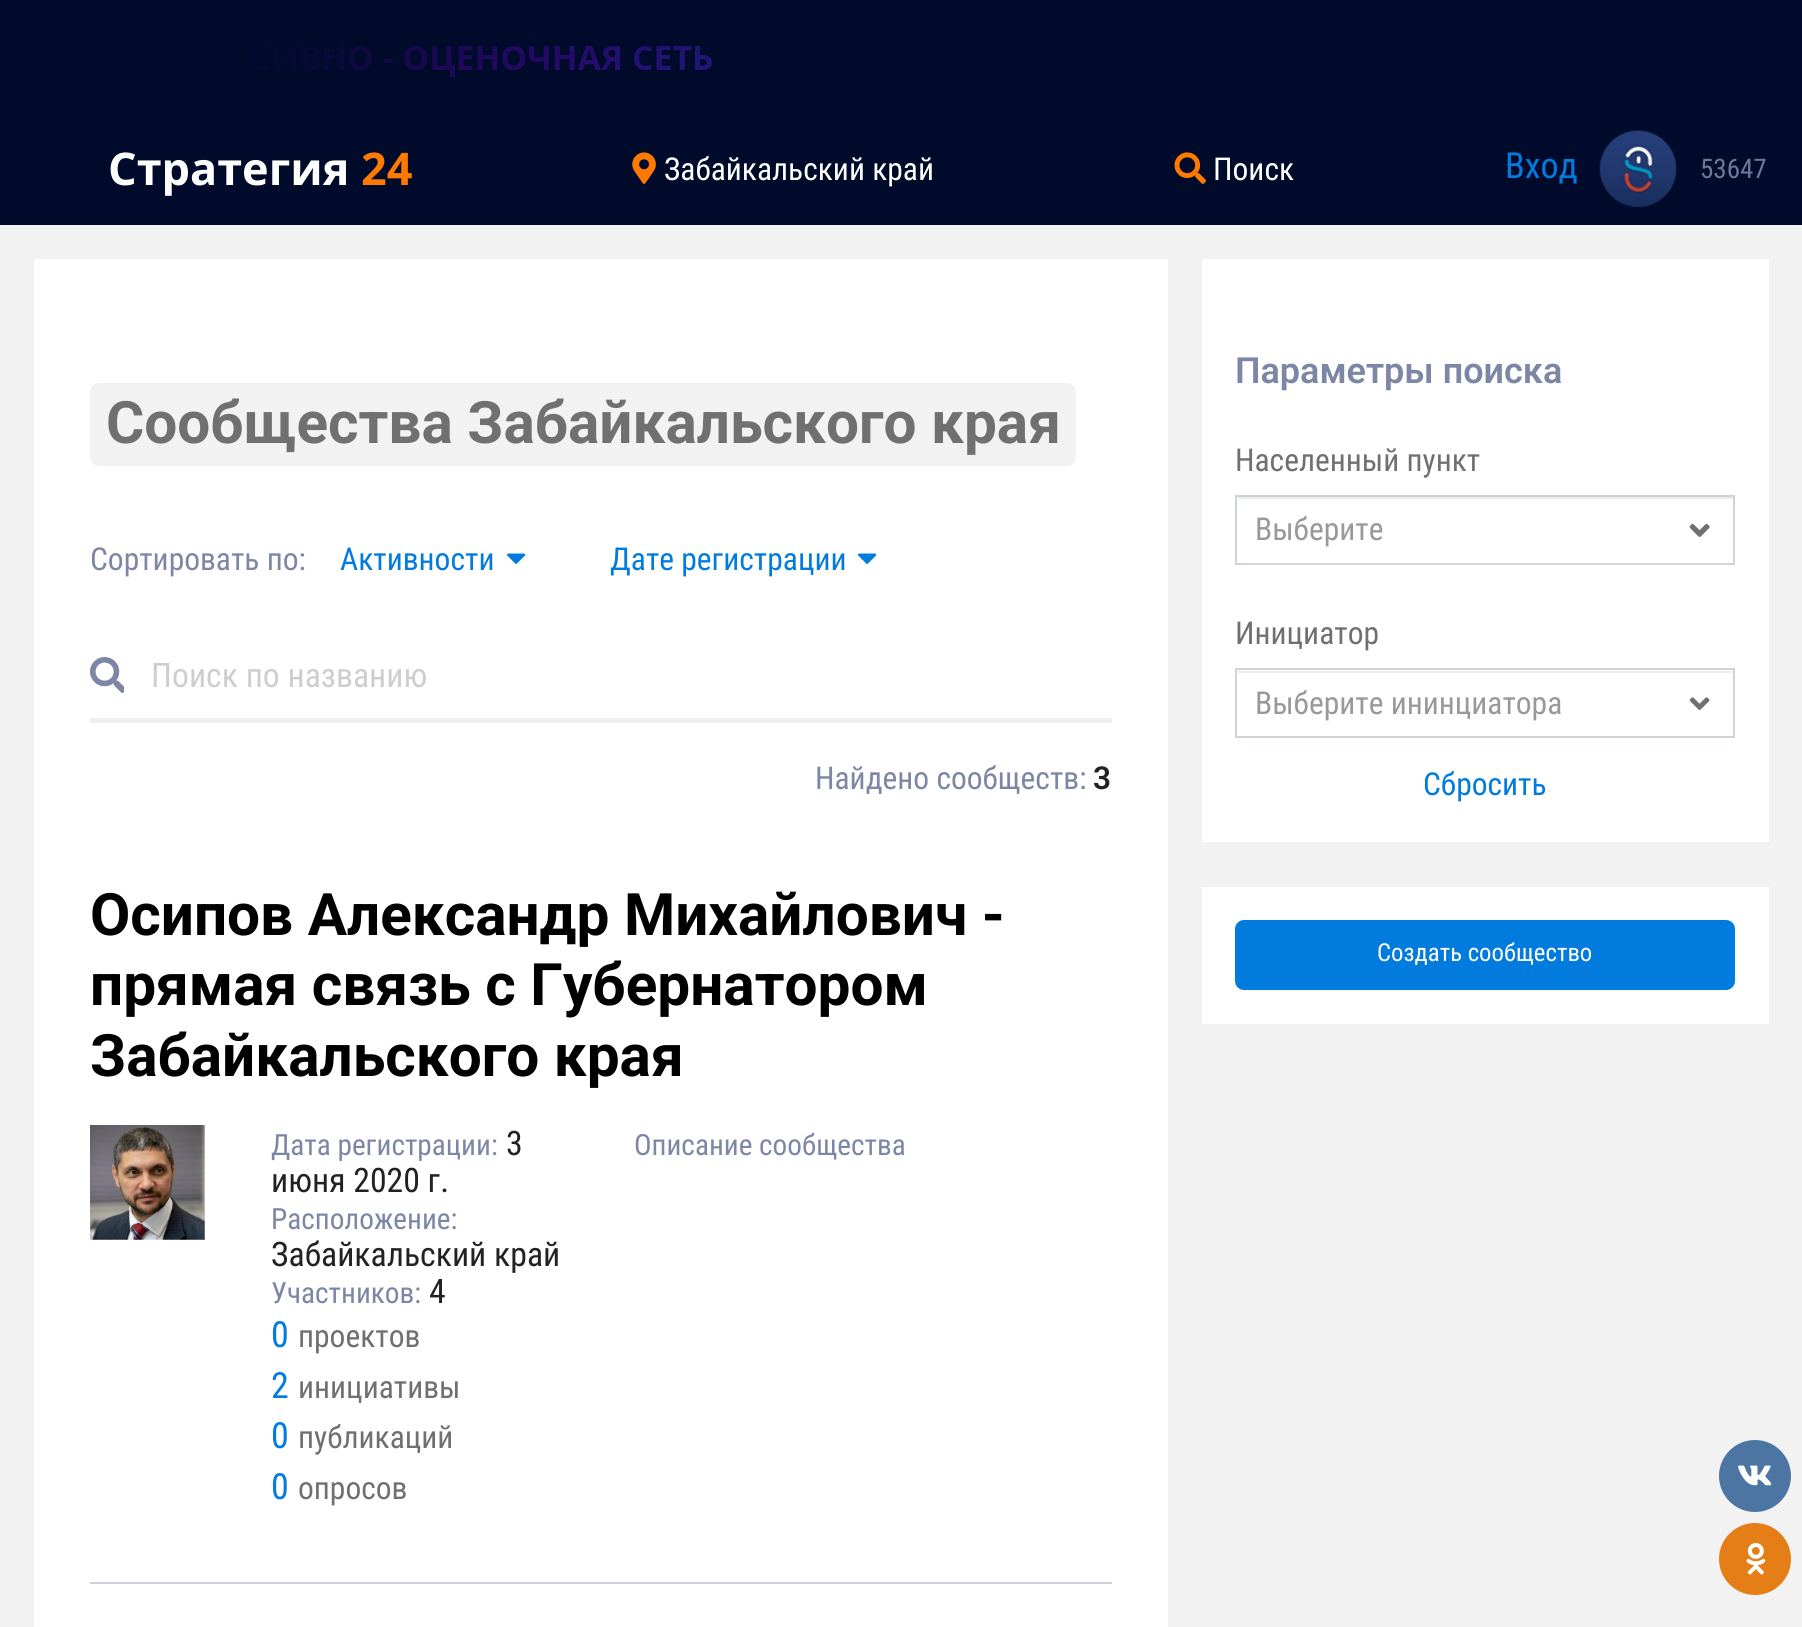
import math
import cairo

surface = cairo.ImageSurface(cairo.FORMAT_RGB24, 1802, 1627)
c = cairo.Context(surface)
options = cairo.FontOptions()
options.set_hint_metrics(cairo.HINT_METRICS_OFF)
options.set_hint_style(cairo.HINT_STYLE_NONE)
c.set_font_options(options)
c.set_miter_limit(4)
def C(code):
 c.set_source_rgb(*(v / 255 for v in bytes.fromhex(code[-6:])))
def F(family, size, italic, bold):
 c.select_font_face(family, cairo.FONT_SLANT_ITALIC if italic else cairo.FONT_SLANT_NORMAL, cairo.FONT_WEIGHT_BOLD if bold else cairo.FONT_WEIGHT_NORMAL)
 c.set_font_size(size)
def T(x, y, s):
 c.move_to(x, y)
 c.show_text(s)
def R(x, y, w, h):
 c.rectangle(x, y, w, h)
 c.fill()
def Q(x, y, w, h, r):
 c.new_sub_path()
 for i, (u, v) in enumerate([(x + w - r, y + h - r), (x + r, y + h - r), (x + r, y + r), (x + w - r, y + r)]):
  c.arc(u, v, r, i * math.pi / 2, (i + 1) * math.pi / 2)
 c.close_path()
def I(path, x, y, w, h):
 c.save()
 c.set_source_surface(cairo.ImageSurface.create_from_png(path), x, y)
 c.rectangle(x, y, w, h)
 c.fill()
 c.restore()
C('f2f2f2')
c.paint()
C('000a2a')
R(0,0,1802,225)
I('1.png',252,46,460,31)
c.arc(54.5,56.5,48.5,0,2 * math.pi)
C('000926')
c.stroke()
F('Open Sans',45,0,1)
C('ffffff')
T(108,185,'Стратегия')
C('ff7800')
T(361,185,'24')
Q(604,143,358,52,8)
C('000926')
c.stroke()
I('2.png',632,152,24,32)
F('Roboto Condensed',31.5,0,0)
C('ffffff')
T(664,180,'Забайкальский край')
Q(1146,143,176,52,8)
C('000926')
c.stroke()
I('3.png',1174,152,32,32)
C('ffffff')
T(1213,180,'Поиск')
F('Roboto Condensed',36,0,0)
C('017bde')
T(1505,178,'Вход')
I('4.png',1599,130,78,77)
F('Roboto Condensed',27,0,0)
C('6f7897')
T(1700,178,'53647')
C('ffffff')
R(34,259,1134,1368)
C('f2f2f2')
Q(90,383,986,83,9)
c.fill()
F('Roboto',58.5,0,1)
C('707070')
T(106,443,'Сообщества Забайкальского края')
F('Roboto Condensed',31.5,0,0)
C('7d86a4')
T(90,570,'Сортировать по:')
C('017bde')
T(340,570,'Активности')
I('5.png',507,553,19,11)
T(610,570,'Дате регистрации')
I('5.png',858,553,19,11)
C('efefef')
R(90,718,1022,5)
I('6.png',90,657,34,36)
F('Roboto Condensed',33.75,0,0)
C('cecece')
T(151,687,'Поиск по названию')
F('Roboto Condensed',31.5,0,0)
C('7d86a4')
T(815,789,'Найдено сообществ:')
F('Roboto SemiBold',31.5,0,0)
C('222222')
T(1093,789,'3')
F('Roboto',58.5,0,1)
C('000000')
T(90,935,'Осипов Александр Михайлович -')
T(90,1005,'прямая связь с Губернатором')
T(90,1076,'Забайкальского края')
I('7.png',90,1125,115,115)
F('Roboto Condensed',29.25,0,0)
C('7d86a4')
T(271,1155,'Дата регистрации:')
F('Roboto Condensed',33.75,0,0)
C('222222')
T(506,1155,'3')
T(271,1192,'июня 2020 г.')
F('Roboto Condensed',29.25,0,0)
C('7d86a4')
T(271,1229,'Расположение:')
F('Roboto Condensed',33.75,0,0)
C('222222')
T(271,1266,'Забайкальский край')
F('Roboto Condensed',29.25,0,0)
C('7d86a4')
T(271,1303,'Участников:')
F('Roboto Condensed',33.75,0,0)
C('222222')
T(429,1303,'4')
F('Roboto Condensed',36,0,0)
C('017bde')
T(271,1347,'0')
F('Roboto Condensed',31.5,0,0)
C('707070')
T(298,1347,'проектов')
F('Roboto Condensed',36,0,0)
C('017bde')
T(271,1398,'2')
F('Roboto Condensed',31.5,0,0)
C('707070')
T(298,1398,'инициативы')
F('Roboto Condensed',36,0,0)
C('017bde')
T(271,1448,'0')
F('Roboto Condensed',31.5,0,0)
C('707070')
T(298,1448,'публикаций')
F('Roboto Condensed',36,0,0)
C('017bde')
T(271,1499,'0')
F('Roboto Condensed',31.5,0,0)
C('707070')
T(298,1499,'опросов')
F('Roboto Condensed',29.25,0,0)
C('7d86a4')
T(634,1155,'Описание сообщества')
C('cfd2dd')
R(90,1582,1022,2)
C('ffffff')
R(1202,259,567,583)
F('Roboto SemiBold',36,0,0)
C('7d86a4')
T(1235,383,'Параметры поиска')
F('Roboto Condensed',31.5,0,0)
C('707070')
T(1235,471,'Населенный пункт')
C('ececec')
R(1238,497,495,2)
c.rectangle(1236,496,498,68)
C('ced4da')
c.stroke()
C('999999')
T(1255,540,'Выберите')
I('8.png',1689,524,21,13)
I('9.png',1689,524,21,13)
C('707070')
T(1235,644,'Инициатор')
C('ececec')
R(1238,671,495,2)
c.rectangle(1236,669,498,68)
C('ced4da')
c.stroke()
C('999999')
T(1255,714,'Выберите ининциатора')
I('10.png',1689,697,21,13)
C('017bde')
T(1423,795,'Сбросить')
C('ffffff')
R(1202,887,567,137)
C('017bde')
Q(1236,921,498,68,8)
c.fill_preserve()
c.stroke()
F('Roboto Condensed',24.75,0,0)
C('ffffff')
T(1377,961,'Создать сообщество')
C('4d75a3')
c.new_path()
c.arc(1755,1476,36,0,2 * math.pi)
c.fill()
I('11.png',1738,1465,34,21)
C('e67e17')
c.arc(1755,1559,36,0,2 * math.pi)
c.fill()
I('12.png',1746,1542,20,33)
surface.write_to_png('o.png')
